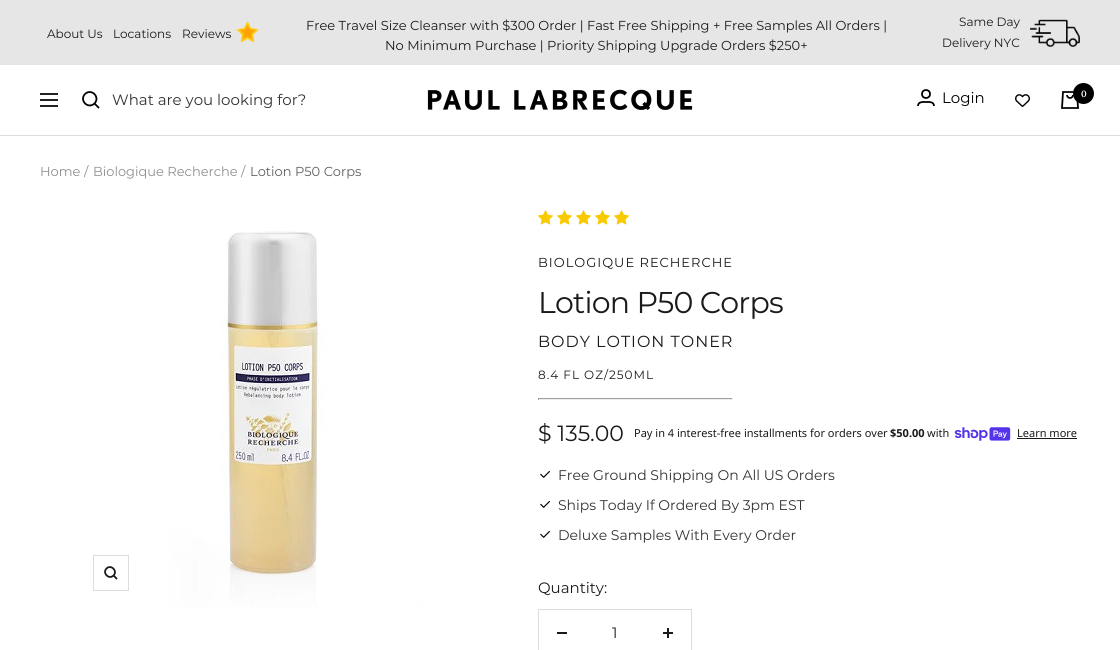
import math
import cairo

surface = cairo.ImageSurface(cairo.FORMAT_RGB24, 1120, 650)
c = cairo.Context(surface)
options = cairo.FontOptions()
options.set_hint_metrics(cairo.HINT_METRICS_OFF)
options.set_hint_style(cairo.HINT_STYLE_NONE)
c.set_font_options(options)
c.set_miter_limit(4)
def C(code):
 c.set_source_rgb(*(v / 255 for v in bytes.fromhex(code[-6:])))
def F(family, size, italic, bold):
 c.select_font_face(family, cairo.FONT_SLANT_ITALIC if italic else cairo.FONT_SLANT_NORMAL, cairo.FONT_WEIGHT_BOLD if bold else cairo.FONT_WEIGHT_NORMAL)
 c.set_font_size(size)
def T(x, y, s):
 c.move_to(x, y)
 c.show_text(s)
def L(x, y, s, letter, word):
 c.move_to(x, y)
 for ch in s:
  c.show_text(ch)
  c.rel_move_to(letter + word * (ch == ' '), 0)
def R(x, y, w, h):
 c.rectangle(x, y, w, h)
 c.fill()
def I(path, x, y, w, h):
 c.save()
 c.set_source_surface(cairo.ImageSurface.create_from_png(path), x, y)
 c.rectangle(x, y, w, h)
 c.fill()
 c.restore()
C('ffffff')
c.paint()
C('e6e6e6')
R(0,0,1120,65)
F('Montserrat',12,0,0)
C('1a1a1a')
T(47,38,'About Us')
T(113,38,'Locations')
T(182,38,'Reviews')
I('1.png',236,21,23,22)
F('Montserrat',13,0,0)
T(306,30,'Free Travel Size Cleanser with $300 Order | Fast Free Shipping + Free Samples All Orders |')
T(385,50,'No Minimum Purchase | Priority Shipping Upgrade Orders $250+')
F('Montserrat',12,0,0)
T(959,26,'Same Day')
I('2.png',1030,19,50,28)
T(942,47,'Delivery NYC')
C('dddddd')
R(0,135,1120,1)
c.new_path()
c.move_to(94.5,103.5)
c.curve_to(100.5,97,91.5,88,85,94)
c.curve_to(79,100.5,88,109.5,94.5,103.5)
c.close_path()
c.move_to(94.5,103.5)
c.line_to(99,108)
c.move_to(40,94)
c.line_to(58,94)
c.move_to(40,106)
c.line_to(58,106)
c.close_path()
c.move_to(40,100)
c.line_to(58,100)
c.close_path()
C('000000')
c.set_line_width(1.8)
c.stroke()
F('Montserrat',15,0,0)
C('333333')
T(112,105,'What are you looking for?')
I('3.png',427,89,266,21)
c.arc(926,94,4,0,2 * math.pi)
C('000000')
c.stroke()
c.new_path()
c.move_to(918,106)
c.curve_to(918,101.5,923,102,926,102)
c.curve_to(929,102,934,101.5,934,106)
c.stroke()
T(942,103,'Login')
I('4.png',1015,94,15,13)
I('5.png',1061,91,18,18)
c.arc(1083.5,93.5,10.5,0,2 * math.pi)
c.fill()
F('Lora SemiBold',9,0,0)
C('ffffff')
T(1081,97,'0')
F('Montserrat',13,0,0)
C('8f8f8f')
T(40,176,'Home')
T(84,176,'/')
T(93,176,'Biologique Recherche')
T(241,176,'/')
C('5f5f5f')
T(250,176,'Lotion P50 Corps')
I('6.png',77,207,400,400)
c.rectangle(93.5,555.5,35,35)
C('dddddd')
c.set_line_width(1)
c.stroke()
c.new_path()
c.move_to(113.5,575.5)
c.curve_to(118,571,111,564,106.5,568.5)
c.curve_to(102,573,109,580,113.5,575.5)
c.close_path()
c.move_to(113.5,575.5)
c.line_to(117,579)
C('1a1a1a')
c.set_line_width(1.8)
c.stroke()
I('7.png',538,210,15,15)
I('7.png',557,210,15,15)
I('7.png',576,210,15,15)
I('7.png',595,210,15,15)
I('7.png',614,210,15,15)
L(538,267,'BIOLOGIQUE RECHERCHE',1,0)
F('Montserrat',30,0,0)
L(538,313,'Lotion P50 Corps',-.75,0)
F('Montserrat',16,0,0)
L(538,347,'BODY LOTION TONER',1,0)
F('Montserrat',12,0,0)
L(538,379,'8.4 FL OZ/250ML',1,0)
C('9f9f9f')
R(538,398,195,1)
C('eeeeee')
R(732,398,1,2)
R(538,399,195,1)
C('9f9f9f')
R(538,398,1,2)
F('Montserrat',22,0,0)
C('1a1a1a')
T(538,441,'$ 135.00')
F('Noto Sans',11,0,0)
T(634,437,'Pay in 4 interest-free installments for orders over')
F('Noto Sans',11,0,1)
T(890,437,'$50.00')
F('Noto Sans',11,0,0)
T(927,437,'with')
I('8.png',954,427,57,14)
T(1017,437,'Learn more')
R(1017,438,60,1)
I('9.png',540,471,10,7)
F('Montserrat',14,0,0)
C('333333')
T(558,480,'Free Ground Shipping On All US Orders')
I('9.png',540,501,10,7)
T(558,510,'Ships Today If Ordered By 3pm EST')
I('9.png',540,531,10,7)
T(558,540,'Deluxe Samples With Every Order')
F('Montserrat',15,0,0)
C('1a1a1a')
T(538,593,'Quantity:')
c.rectangle(538.5,609.5,153,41)
C('dddddd')
c.set_line_width(1)
c.stroke()
C('1a1a1a')
R(557,632,10,2)
T(612,638,'1')
I('10.png',663,628,10,10)
surface.write_to_png('o.png')
